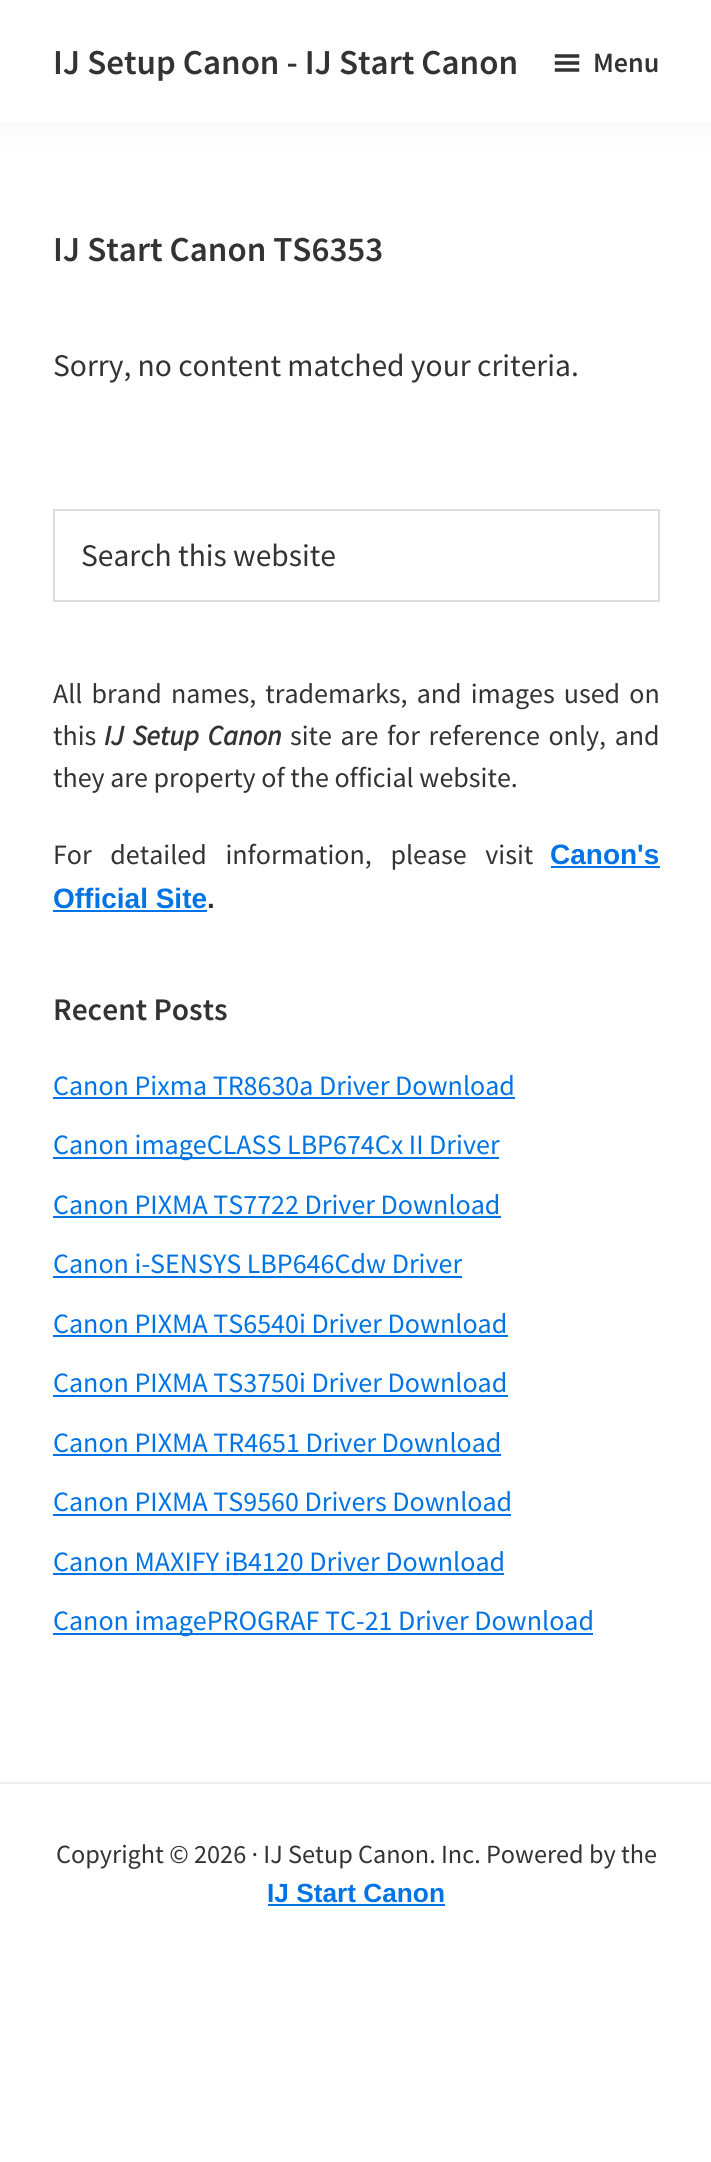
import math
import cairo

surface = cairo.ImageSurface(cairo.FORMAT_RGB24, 711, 2162)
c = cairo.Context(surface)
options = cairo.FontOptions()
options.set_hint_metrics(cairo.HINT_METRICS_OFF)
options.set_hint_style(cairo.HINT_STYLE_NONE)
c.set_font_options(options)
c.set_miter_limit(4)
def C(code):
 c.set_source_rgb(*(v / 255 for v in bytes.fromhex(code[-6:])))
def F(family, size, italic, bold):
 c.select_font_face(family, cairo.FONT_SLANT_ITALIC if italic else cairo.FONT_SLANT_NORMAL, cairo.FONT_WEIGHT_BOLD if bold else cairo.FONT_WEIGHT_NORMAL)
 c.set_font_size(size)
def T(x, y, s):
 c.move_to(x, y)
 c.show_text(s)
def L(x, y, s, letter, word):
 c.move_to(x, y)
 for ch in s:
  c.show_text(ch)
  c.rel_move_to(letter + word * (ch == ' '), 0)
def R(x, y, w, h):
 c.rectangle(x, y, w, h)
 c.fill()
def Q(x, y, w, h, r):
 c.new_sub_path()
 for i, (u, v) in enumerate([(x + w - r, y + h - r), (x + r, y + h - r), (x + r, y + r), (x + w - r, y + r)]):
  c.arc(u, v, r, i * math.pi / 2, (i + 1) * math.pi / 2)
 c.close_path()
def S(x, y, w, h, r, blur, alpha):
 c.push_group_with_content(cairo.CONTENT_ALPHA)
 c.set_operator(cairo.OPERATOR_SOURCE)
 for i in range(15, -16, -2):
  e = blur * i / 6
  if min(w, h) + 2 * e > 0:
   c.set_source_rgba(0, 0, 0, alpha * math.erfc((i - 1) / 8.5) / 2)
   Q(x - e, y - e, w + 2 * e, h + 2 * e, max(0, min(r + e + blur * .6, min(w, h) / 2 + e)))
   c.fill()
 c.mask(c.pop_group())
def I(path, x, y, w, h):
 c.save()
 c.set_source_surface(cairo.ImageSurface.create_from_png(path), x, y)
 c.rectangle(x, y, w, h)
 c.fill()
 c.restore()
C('ffffff')
c.paint()
C('000000')
S(0,0,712,123,0,17.5,.05)
C('ffffff')
R(0,0,711,123)
F('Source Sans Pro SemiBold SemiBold',35,0,0)
C('333333')
T(53,74,'IJ Setup Canon - IJ Start Canon')
I('1.png',554,54,26,18)
F('Source Sans Pro SemiBold SemiBold',28,0,0)
T(593,72,'Menu')
F('Source Sans Pro SemiBold SemiBold',35,0,0)
T(53,261,'IJ Start Canon TS6353')
F('Source Sans Pro',31.5,0,0)
T(53,376,'Sorry, no content matched your criteria.')
c.rectangle(54,510,605,91)
C('dddddd')
c.stroke()
C('333333')
T(81,566,'Search this website')
F('Source Sans Pro',28,0,0)
L(53,703,'All brand names, trademarks, and images used on',0,3.5)
T(53,745,'this')
F('Source Sans Pro',28,1,1)
L(104,745,'IJ Setup Canon',0,3)
F('Source Sans Pro',28,0,0)
L(290,745,'site are for reference only, and',0,3)
T(53,787,'they are property of the official website.')
L(53,864,'For detailed information, please visit',0,13)
F('Liberation Sans',28,0,1)
C('0073e5')
T(550,864,'Canon\'s')
R(551,866,109,2)
T(53,908,'Official Site')
C('333333')
T(207,908,'.')
C('0073e5')
R(53,910,154,2)
F('Source Sans Pro SemiBold SemiBold',31.5,0,0)
C('333333')
T(53,1020,'Recent Posts')
F('Source Sans Pro',28,0,0)
C('0073e5')
T(53,1095,'Canon Pixma TR8630a Driver Download')
R(53,1097,462,2)
R(53,1157,446,2)
T(53,1154,'Canon imageCLASS LBP674Cx II Driver')
T(53,1214,'Canon PIXMA TS7722 Driver Download')
R(53,1216,448,2)
T(53,1273,'Canon i-SENSYS LBP646Cdw Driver')
R(53,1276,409,2)
T(53,1333,'Canon PIXMA TS6540i Driver Download')
R(53,1335,455,2)
T(53,1392,'Canon PIXMA TS3750i Driver Download')
R(53,1395,455,2)
T(53,1452,'Canon PIXMA TR4651 Driver Download')
R(53,1454,448,2)
T(53,1511,'Canon PIXMA TS9560 Drivers Download')
R(53,1514,458,2)
T(53,1571,'Canon MAXIFY iB4120 Driver Download')
R(53,1573,451,2)
R(53,1633,540,2)
T(53,1630,'Canon imagePROGRAF TC-21 Driver Download')
C('eeeeee')
R(0,1782,711,2)
F('Source Sans Pro',26.25,0,0)
C('333333')
T(56,1863,'Copyright © 2026 · IJ Setup Canon. Inc. Powered by the')
F('Liberation Sans',26.25,0,1)
C('0073e5')
T(267,1902,'IJ Start Canon')
R(268,1904,177,2)
surface.write_to_png('o.png')
